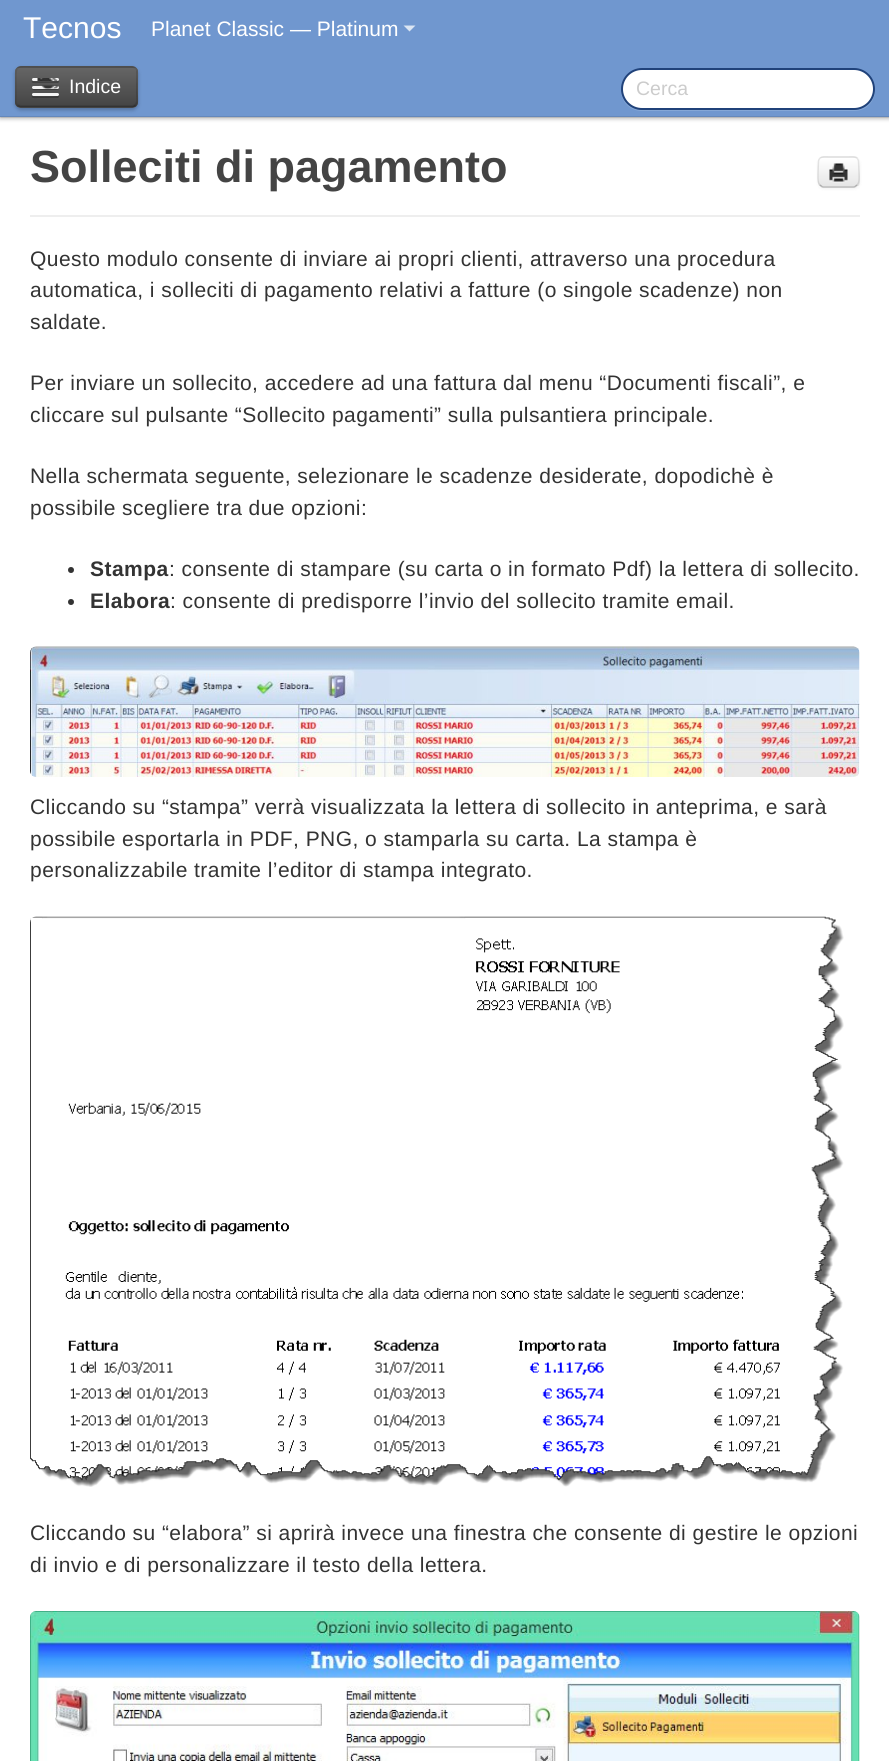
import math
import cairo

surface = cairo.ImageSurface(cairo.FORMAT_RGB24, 889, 1761)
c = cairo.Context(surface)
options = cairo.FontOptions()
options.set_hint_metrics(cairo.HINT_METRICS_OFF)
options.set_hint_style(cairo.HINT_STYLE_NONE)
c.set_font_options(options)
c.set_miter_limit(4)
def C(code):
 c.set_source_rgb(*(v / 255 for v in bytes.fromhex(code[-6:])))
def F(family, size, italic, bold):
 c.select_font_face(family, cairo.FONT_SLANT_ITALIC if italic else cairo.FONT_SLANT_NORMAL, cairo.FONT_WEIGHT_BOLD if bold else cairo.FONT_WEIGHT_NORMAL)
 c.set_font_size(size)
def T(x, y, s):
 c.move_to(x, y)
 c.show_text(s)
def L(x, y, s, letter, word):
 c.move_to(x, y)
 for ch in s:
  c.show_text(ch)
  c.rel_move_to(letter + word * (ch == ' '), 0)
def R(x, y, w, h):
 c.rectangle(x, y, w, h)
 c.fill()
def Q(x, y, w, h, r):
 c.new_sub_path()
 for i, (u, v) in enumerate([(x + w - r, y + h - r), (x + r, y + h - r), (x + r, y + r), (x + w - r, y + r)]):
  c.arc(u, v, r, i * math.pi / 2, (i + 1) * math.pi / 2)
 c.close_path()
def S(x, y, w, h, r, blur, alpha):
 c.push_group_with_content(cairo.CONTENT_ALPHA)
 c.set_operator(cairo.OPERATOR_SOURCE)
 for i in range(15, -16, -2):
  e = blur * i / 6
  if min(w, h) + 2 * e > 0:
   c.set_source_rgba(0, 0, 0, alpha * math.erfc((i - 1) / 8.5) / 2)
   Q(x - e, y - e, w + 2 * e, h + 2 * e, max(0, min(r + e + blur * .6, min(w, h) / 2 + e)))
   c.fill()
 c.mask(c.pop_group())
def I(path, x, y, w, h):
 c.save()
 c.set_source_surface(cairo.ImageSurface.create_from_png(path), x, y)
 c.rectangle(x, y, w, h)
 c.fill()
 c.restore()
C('ffffff')
c.paint()
C('000000')
S(0,2,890,117,0,2,.25)
C('7097cf')
R(0,0,889,117)
c.set_source_rgba(0,0,0,0.1)
R(0,116,889,2)
F('Liberation Sans',30,0,0)
C('ffffff')
T(23,38,'Tecnos')
F('Liberation Sans',21,0,0)
T(151,36,'Planet Classic — Platinum')
C('dbe5f3')
c.new_path()
c.move_to(403.5,25.5)
c.line_to(415.5,25.5)
c.line_to(409.5,31.5)
c.close_path()
c.fill()
C('000000')
S(15,68,123,42,6,2,.25)
C('555555')
Q(15,66,123,42,6)
c.fill()
c.save()
Q(15,66,123,42,6)
c.clip()
gradient = cairo.LinearGradient(77,67,77,107)
gradient.add_color_stop_rgba(0,0.4,0.4,0.4,1)
gradient.add_color_stop_rgba(1,0.267,0.267,0.267,1)
c.set_source(gradient)
R(15,68,123,39)
c.restore()
c.set_source_rgba(0,0,0,0.1)
c.new_path()
c.move_to(17,103)
c.curve_to(18,105,20,107,22,107)
c.line_to(132,107)
c.curve_to(135,107,137,105,137,102)
c.line_to(137,73)
c.curve_to(137,72,137,71,136,70)
c.line_to(136,100)
c.curve_to(136,103,134,105,132,105)
c.line_to(21,105)
c.curve_to(20,105,18,104,17,103)
c.close_path()
c.fill()
c.new_path()
c.move_to(135.5,105.5)
c.line_to(132.5,107)
c.line_to(20.5,107)
c.line_to(17.5,105.5)
c.set_source_rgba(0,0,0,0.25)
c.set_line_width(1.5)
c.stroke()
c.new_path()
c.move_to(17.5,105.5)
c.curve_to(15,103.5,16,100,16,97)
c.line_to(16,87)
c.curve_to(16,63,13,67,39.5,67)
c.line_to(113.5,67)
c.curve_to(142.5,67,137,63.5,137,92)
c.curve_to(137,95.5,139,102.5,135.5,105.5)
c.set_source_rgba(0,0,0,0.1)
c.stroke()
C('434343')
c.new_path()
c.move_to(32,81)
c.curve_to(30.5,84,37.5,83,37.5,83)
c.line_to(58,83)
c.curve_to(59,82.5,59.5,81,58.5,80)
c.line_to(57,81)
c.curve_to(55,81.5,33,81.5,32,81)
c.close_path()
c.fill()
C('f5f5f5')
Q(32,78,27,3,1.5)
c.fill()
I('1.png',37,78,21,3)
F('Liberation Sans',19.5,0,0)
C('ffffff')
T(69,93,'Indice')
C('3e3e3e')
c.new_path()
c.move_to(32,88)
c.curve_to(31.5,91,37,90,37.5,90)
c.line_to(57.5,90)
c.curve_to(59,90,59.5,88,58.5,87.5)
c.line_to(57.5,88.5)
c.curve_to(56,89,32.5,88.5,32,88)
c.close_path()
c.fill()
C('f5f5f5')
Q(32,86,27,3,1.5)
c.fill()
I('2.png',39,85,20,4)
C('393939')
c.new_path()
c.move_to(32,96)
c.curve_to(30.5,99,37.5,98,37.5,98)
c.line_to(58,98)
c.curve_to(59,97.5,59.5,96,58.5,95)
c.line_to(57,96)
c.curve_to(55,96.5,33,96.5,32,96)
c.close_path()
c.fill()
C('f5f5f5')
Q(32,93,27,3,1.5)
c.fill()
C('85a7d6')
c.new_path()
c.move_to(621,89)
c.line_to(621,90)
c.curve_to(621,102,630,111,642,111)
c.line_to(854,111)
c.curve_to(866,111,875,102,875,90)
c.curve_to(875,87,875,85,874,83)
c.line_to(874,88)
c.curve_to(874,100,865,110,854,110)
c.line_to(642,110)
c.curve_to(631,110,621,101,621,89)
c.close_path()
c.fill()
C('ffffff')
Q(622,69,252,40,20)
c.fill_preserve()
C('20427a')
c.set_line_width(2)
c.stroke()
C('cccccc')
T(636,95,'Cerca')
C('eeeeee')
R(30,215,830,2)
F('Liberation Sans',45,0,1)
C('444444')
T(30,182,'Solleciti di pagamento')
C('000000')
S(818,158,42,31,6,1.5,.05)
C('f5f5f5')
Q(818,156,42,32,6)
c.fill()
c.save()
Q(818,156,42,32,6)
c.clip()
gradient = cairo.LinearGradient(839,158,839,186)
gradient.add_color_stop_rgba(0,1,1,1,1)
gradient.add_color_stop_rgba(1,0.902,0.902,0.902,1)
c.set_source(gradient)
R(818,158,42,28)
c.restore()
c.new_path()
c.move_to(857,185)
c.curve_to(856,186,855,187,853.5,187)
c.line_to(823.5,187)
c.curve_to(822,187,821,186,820,185)
c.set_source_rgba(0,0,0,0.25)
c.set_line_width(1.5)
c.stroke()
c.new_path()
c.move_to(820,185)
c.curve_to(817,182.5,818,175.5,818,172)
c.line_to(818.5,161)
c.curve_to(819.5,156,824.5,157,828.5,157)
c.line_to(848.5,157)
c.curve_to(852.5,157,857.5,156,858.5,161)
c.line_to(859,172)
c.curve_to(859,175.5,860,182.5,857,185)
c.set_source_rgba(0,0,0,0.1)
c.stroke()
I('3.png',829,163,19,20)
F('Liberation Sans',21,0,0)
C('333333')
L(30,266,'Questo modulo consente di inviare ai propri clienti, attraverso una procedura',.45,0)
L(30,297,'automatica, i solleciti di pagamento relativi a fatture (o singole scadenze) non',.45,0)
L(30,329,'saldate.',.45,0)
L(30,390,'Per inviare un sollecito, accedere ad una fattura dal menu “Documenti fiscali”, e',.45,0)
L(30,422,'cliccare sul pulsante “Sollecito pagamenti” sulla pulsantiera principale.',.45,0)
L(30,483,'Nella schermata seguente, selezionare le scadenze desiderate, dopodichè è',.45,0)
L(30,515,'possibile scegliere tra due opzioni:',.45,0)
c.new_path()
c.arc(71,570,3,0,2 * math.pi)
c.fill()
F('Liberation Sans',21,0,1)
L(90,576,'Stampa',.45,0)
F('Liberation Sans',21,0,0)
L(169,576,': consente di stampare (su carta o in formato Pdf) la lettera di sollecito.',.45,0)
c.new_path()
c.arc(71,602,3,0,2 * math.pi)
c.fill()
F('Liberation Sans',21,0,1)
L(90,608,'Elabora',.45,0)
F('Liberation Sans',21,0,0)
L(170,608,': consente di predisporre l’invio del sollecito tramite email.',.45,0)
I('4.png',30,646,830,131)
L(30,814,'Cliccando su “stampa” verrà visualizzata la lettera di sollecito in anteprima, e sarà',.45,0)
L(30,846,'possibile esportarla in PDF, PNG, o stamparla su carta. La stampa è',.45,0)
L(30,877,'personalizzabile tramite l’editor di stampa integrato.',.45,0)
I('5.png',30,916,814,571)
L(30,1540,'Cliccando su “elabora” si aprirà invece una finestra che consente di gestire le opzioni',.45,0)
L(30,1572,'di invio e di personalizzare il testo della lettera.',.45,0)
I('6.png',30,1611,830,150)
surface.write_to_png('o.png')
